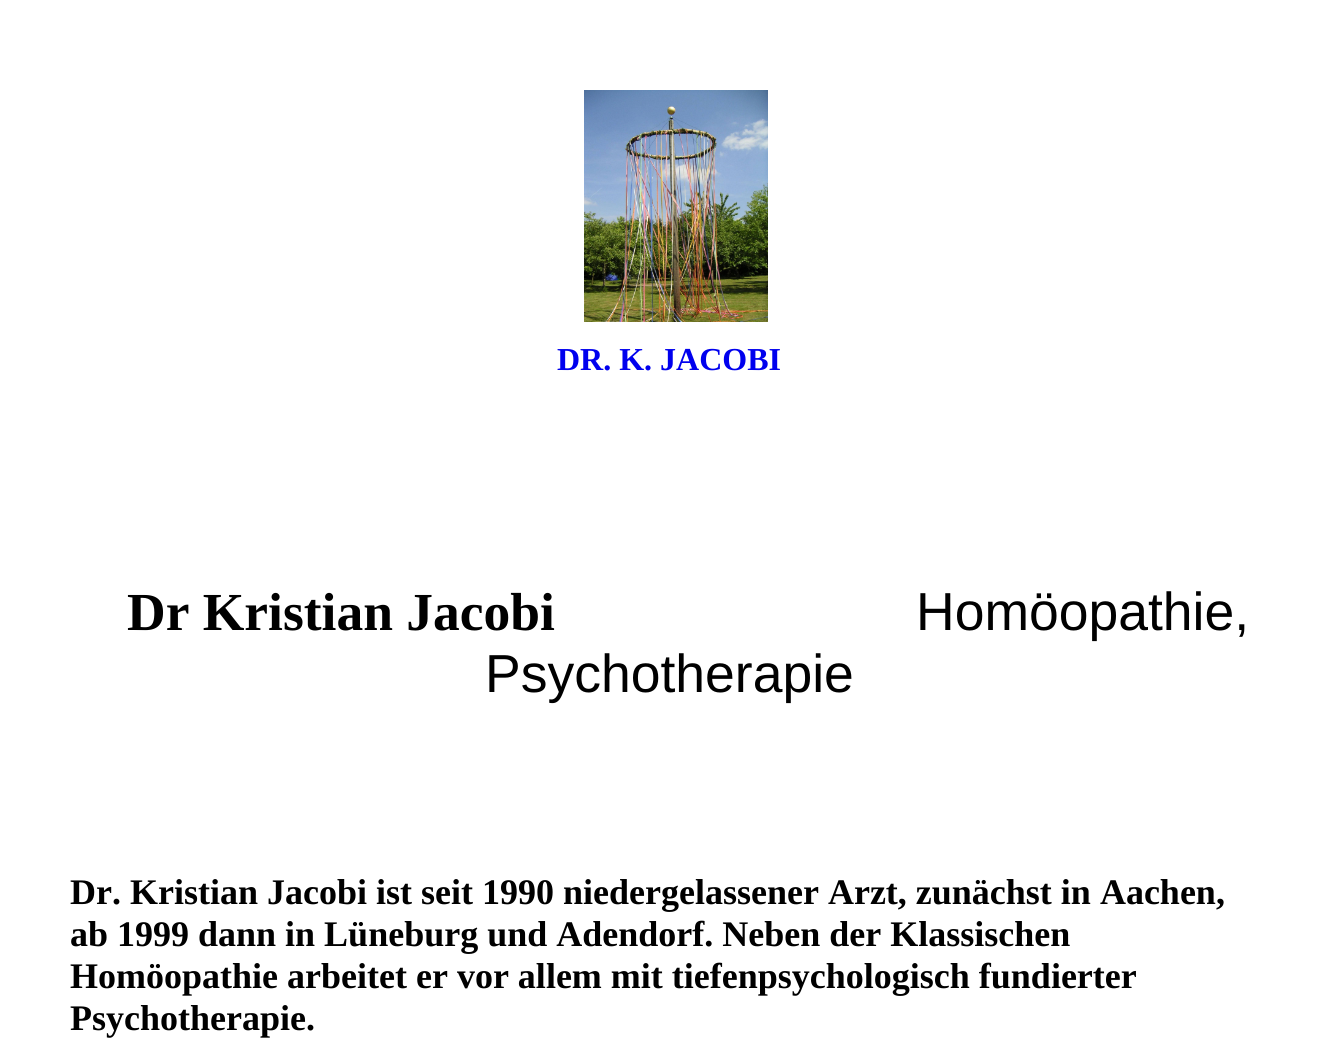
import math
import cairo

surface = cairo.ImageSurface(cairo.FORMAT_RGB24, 1337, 1050)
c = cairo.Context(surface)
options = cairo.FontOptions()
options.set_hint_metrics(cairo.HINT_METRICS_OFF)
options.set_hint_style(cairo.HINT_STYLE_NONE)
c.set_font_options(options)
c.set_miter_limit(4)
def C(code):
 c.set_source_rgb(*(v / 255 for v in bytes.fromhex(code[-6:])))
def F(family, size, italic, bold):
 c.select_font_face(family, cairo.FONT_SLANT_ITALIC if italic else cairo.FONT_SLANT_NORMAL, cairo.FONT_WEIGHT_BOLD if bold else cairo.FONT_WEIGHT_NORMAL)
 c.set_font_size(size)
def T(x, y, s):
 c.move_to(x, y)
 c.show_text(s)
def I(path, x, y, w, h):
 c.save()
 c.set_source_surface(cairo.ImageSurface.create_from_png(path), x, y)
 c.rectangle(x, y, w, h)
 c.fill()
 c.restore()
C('ffffff')
c.paint()
I('1.png',584,90,184,232)
F('Liberation Serif',32,0,1)
C('0000ee')
T(557,370,'DR. K. JACOBI')
F('Liberation Serif',53.5,0,1)
C('000000')
T(127,630,'Dr Kristian Jacobi')
F('Liberation Sans',53.5,0,0)
T(916,630,'Homöopathie,')
T(485,692,'Psychotherapie')
F('Liberation Serif',36,0,1)
T(70,904,'Dr. Kristian Jacobi ist seit 1990 niedergelassener Arzt, zunächst in Aachen,')
T(70,946,'ab 1999 dann in Lüneburg und Adendorf. Neben der Klassischen')
T(70,988,'Homöopathie arbeitet er vor allem mit tiefenpsychologisch fundierter')
T(70,1030,'Psychotherapie.')
surface.write_to_png('o.png')
